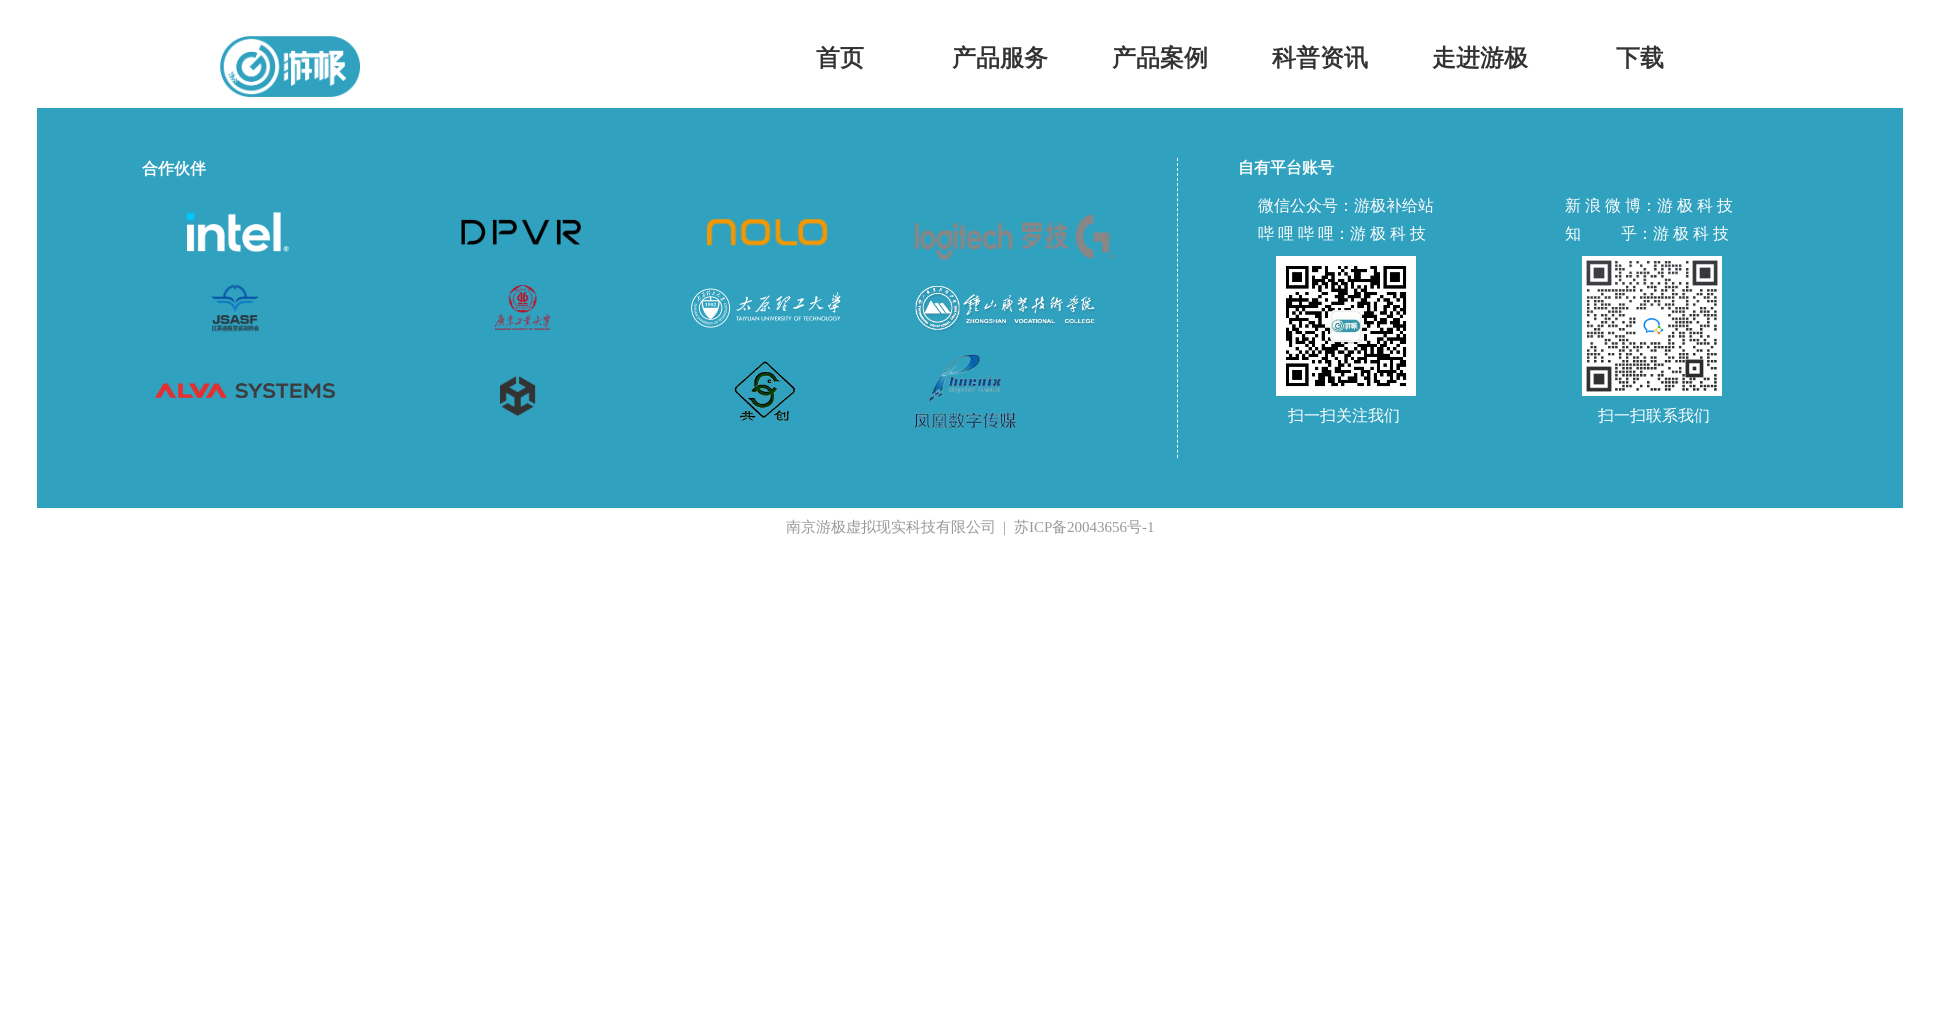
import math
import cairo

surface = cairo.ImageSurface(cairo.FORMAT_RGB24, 1940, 1028)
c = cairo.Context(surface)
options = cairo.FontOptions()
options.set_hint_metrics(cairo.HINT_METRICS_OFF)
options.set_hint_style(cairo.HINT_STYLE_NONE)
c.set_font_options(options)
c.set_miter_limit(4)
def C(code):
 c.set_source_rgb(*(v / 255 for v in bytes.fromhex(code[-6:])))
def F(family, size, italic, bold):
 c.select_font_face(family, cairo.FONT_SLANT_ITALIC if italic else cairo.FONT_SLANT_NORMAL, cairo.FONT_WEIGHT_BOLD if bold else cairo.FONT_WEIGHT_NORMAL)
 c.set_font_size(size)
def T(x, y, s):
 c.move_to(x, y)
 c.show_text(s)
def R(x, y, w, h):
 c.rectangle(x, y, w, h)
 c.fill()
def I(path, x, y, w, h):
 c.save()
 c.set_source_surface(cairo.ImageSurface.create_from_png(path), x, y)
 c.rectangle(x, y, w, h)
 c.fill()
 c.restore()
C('ffffff')
c.paint()
I('1.png',220,36,140,61)
F('WenQuanYi Zen Hei',24,0,1)
C('333333')
T(816,66,'首页')
T(952,66,'产品服务')
T(1112,66,'产品案例')
T(1272,66,'科普资讯')
T(1432,66,'走进游极')
T(1616,66,'下载')
C('30a1bf')
R(37,108,1866,400)
F('WenQuanYi Zen Hei',16,0,1)
C('ffffff')
T(142,174,'合作伙伴')
I('2.png',187,212,102,40)
I('3.png',461,219,120,26)
I('4.png',707,219,120,27)
I('5.png',915,214,200,46)
I('6.png',211,284,48,48)
I('7.png',495,285,56,45)
I('8.png',691,288,150,40)
I('9.png',915,286,180,46)
I('10.png',155,383,180,15)
I('11.png',500,376,36,40)
I('12.png',734,361,62,60)
I('13.png',914,354,103,75)
c.new_path()
c.move_to(1177.5,158)
c.line_to(1177.5,458)
c.set_line_width(1)
c.set_dash([3,2.03])
c.stroke()
T(1238,173,'自有平台账号')
F('WenQuanYi Zen Hei Medium',16,0,0)
T(1258,211,'微信公众号：游极补给站')
T(1258,239,'哔')
T(1278,239,'哩')
T(1298,239,'哔')
T(1318,239,'哩：游')
T(1370,239,'极')
T(1390,239,'科')
T(1410,239,'技')
I('14.png',1276,256,140,140)
T(1288,421,'扫一扫关注我们')
T(1565,211,'新')
T(1585,211,'浪')
T(1605,211,'微')
T(1625,211,'博：游')
T(1677,211,'极')
T(1697,211,'科')
T(1717,211,'技')
T(1565,239,'知')
T(1621,239,'乎：游')
T(1673,239,'极')
T(1693,239,'科')
T(1713,239,'技')
I('15.png',1582,256,140,140)
T(1598,421,'扫一扫联系我们')
F('WenQuanYi Zen Hei Medium',15,0,0)
C('999999')
T(786,532,'南京游极虚拟现实科技有限公司')
F('Liberation Serif',15,0,0)
T(1003,532,'|')
F('WenQuanYi Zen Hei Medium',15,0,0)
T(1014,532,'苏')
F('Liberation Serif',15,0,0)
T(1029,532,'ICP')
F('WenQuanYi Zen Hei Medium',15,0,0)
T(1052,532,'备')
F('Liberation Serif',15,0,0)
T(1067,532,'20043656')
F('WenQuanYi Zen Hei Medium',15,0,0)
T(1127,532,'号')
F('Liberation Serif',15,0,0)
T(1142,532,'-1')
surface.write_to_png('o.png')
